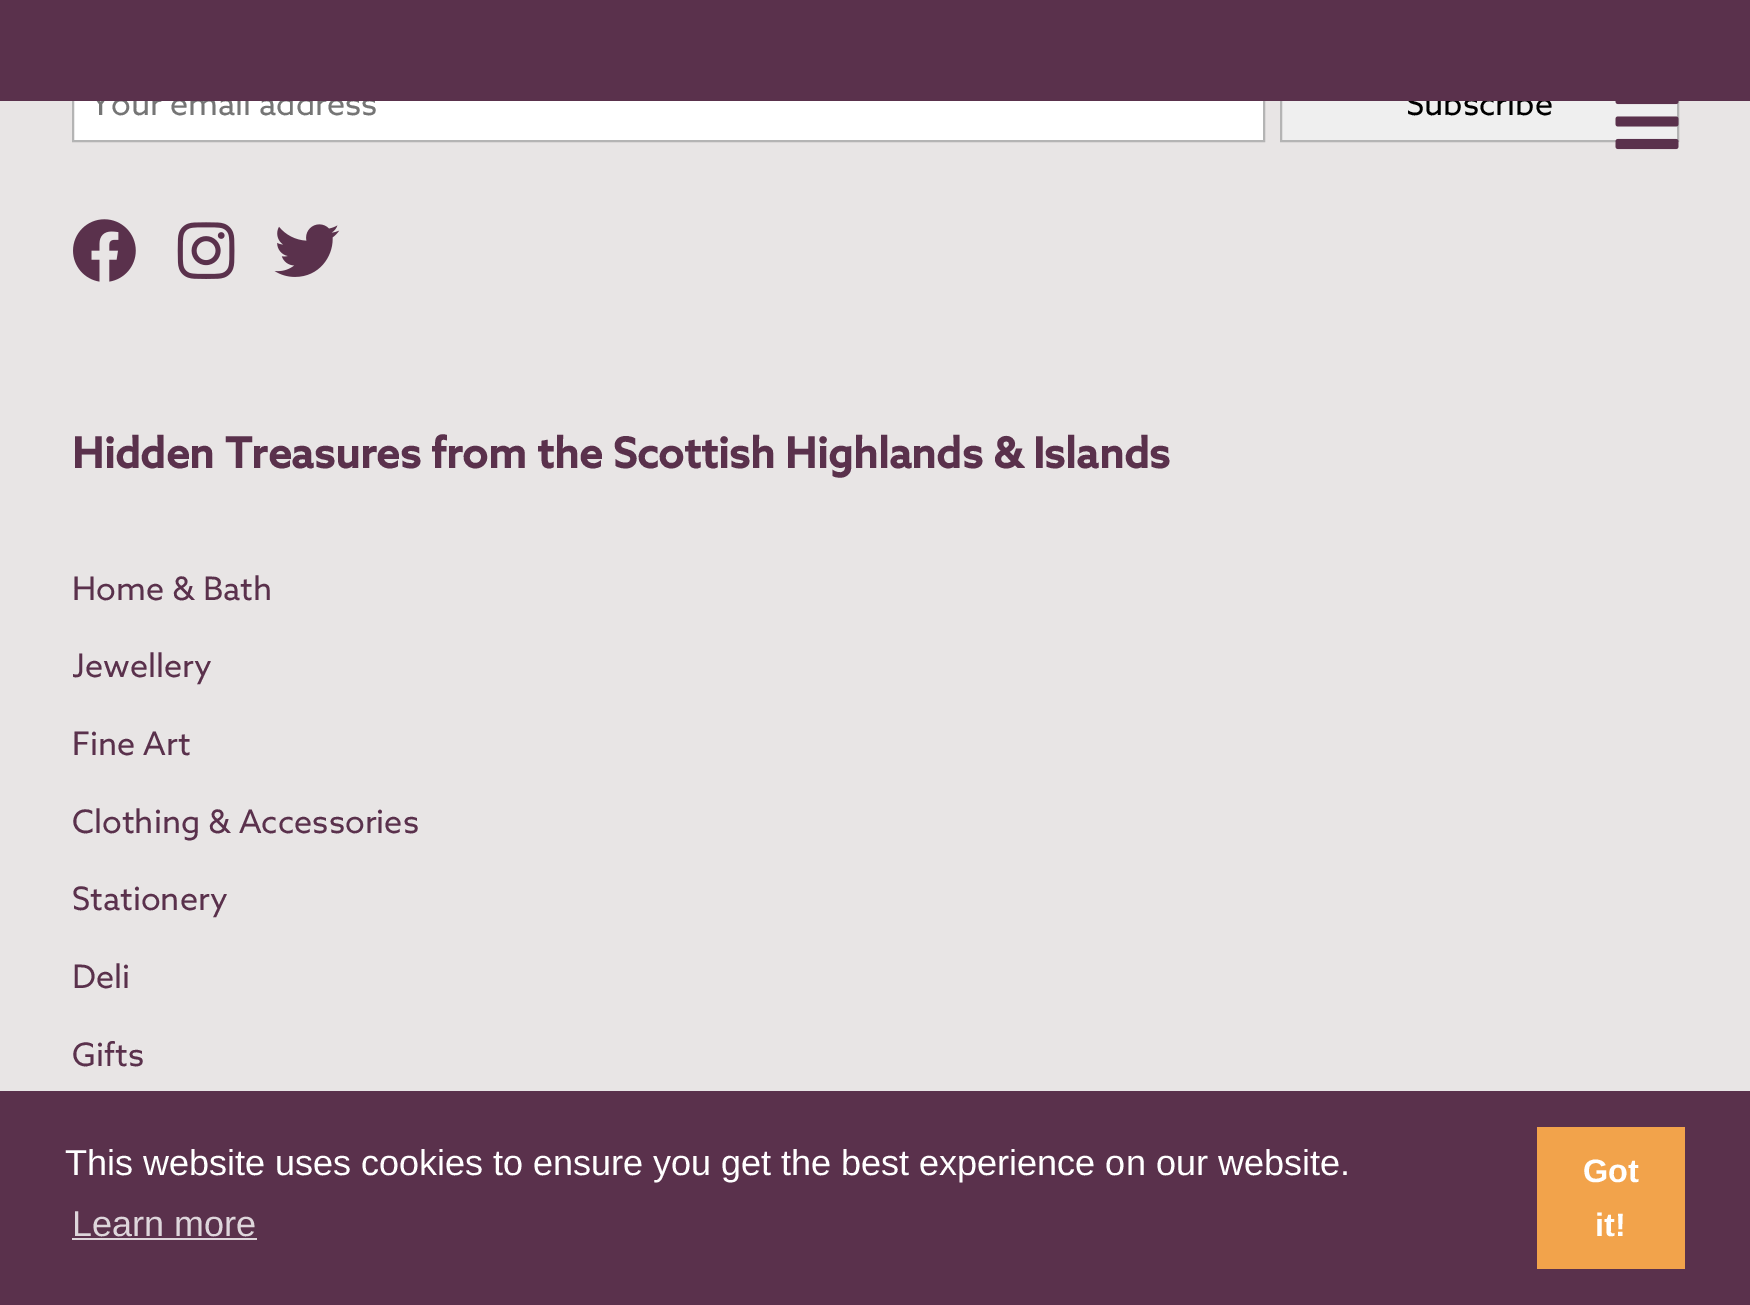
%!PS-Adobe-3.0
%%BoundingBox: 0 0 1750 1305
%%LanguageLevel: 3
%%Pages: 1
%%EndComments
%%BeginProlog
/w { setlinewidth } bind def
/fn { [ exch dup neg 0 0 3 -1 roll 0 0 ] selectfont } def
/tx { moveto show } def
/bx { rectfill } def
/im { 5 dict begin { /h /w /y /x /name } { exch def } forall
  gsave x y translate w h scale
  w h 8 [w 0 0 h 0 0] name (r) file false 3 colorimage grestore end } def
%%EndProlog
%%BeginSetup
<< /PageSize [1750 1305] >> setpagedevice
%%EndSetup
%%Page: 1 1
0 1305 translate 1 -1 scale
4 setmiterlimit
0.91 0.898 0.898 setrgbcolor
0 0 1750 1305 bx
1 setgray
74 101 1189 39 bx
0.706 setgray
2 w
73 69 1191 72 rectstroke
/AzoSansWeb-Regular 32.4 fn
0.459 setgray
(Your email address) 90 115 tx
0.937 setgray
1282 101 395 39 bx
0.706 setgray
1281 69 397 72 rectstroke
0 setgray
(Subscribe) 1406 115 tx
0.353 0.192 0.298 setrgbcolor
0 0 1750 101 bx
(image0.raw) 1615 101 64 49 im
(image1.raw) 73 219 63 63 im
(image2.raw) 177 222 58 57 im
(image3.raw) 274 224 66 53 im
/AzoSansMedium-Bold 42.1 fn
(Hidden Treasures from the Scottish Highlands & Islands) 72 468 tx
/AzoSansWeb-Regular 32.4 fn
(Home & Bath) 72 600 tx
(Jewellery) 72 677 tx
(Fine Art) 72 755 tx
(Clothing & Accessories) 72 833 tx
(Stationery) 72 910 tx
(Deli) 72 988 tx
(Gifts) 72 1066 tx
0 1091 1750 214 bx
/LiberationSans-Regular 36 fn
1 setgray
(This website uses cookies to ensure you get the best experience on our website.) 65 1175 tx
0.871 0.839 0.859 setrgbcolor
(Learn more) 72 1236 tx
72 1238 185 2 bx
0.949 0.639 0.294 setrgbcolor
1537 1127 148 142 bx
/LiberationSans-Bold 32.4 fn
1 setgray
(Got) 1583 1182 tx
(it!) 1595 1236 tx
showpage
%%EOF
